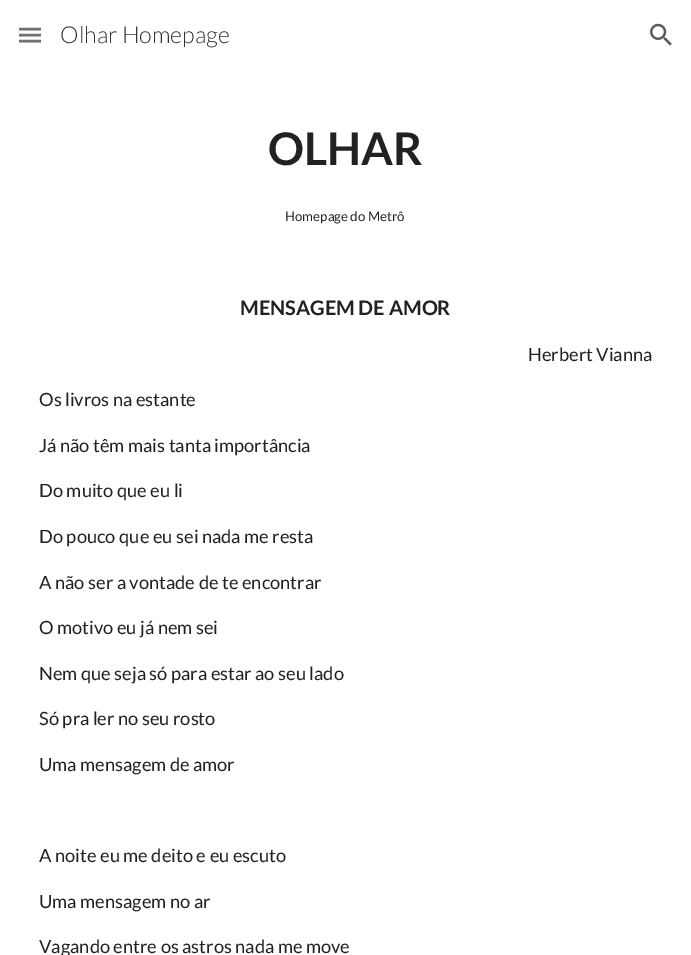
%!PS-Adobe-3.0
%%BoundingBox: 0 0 691 955
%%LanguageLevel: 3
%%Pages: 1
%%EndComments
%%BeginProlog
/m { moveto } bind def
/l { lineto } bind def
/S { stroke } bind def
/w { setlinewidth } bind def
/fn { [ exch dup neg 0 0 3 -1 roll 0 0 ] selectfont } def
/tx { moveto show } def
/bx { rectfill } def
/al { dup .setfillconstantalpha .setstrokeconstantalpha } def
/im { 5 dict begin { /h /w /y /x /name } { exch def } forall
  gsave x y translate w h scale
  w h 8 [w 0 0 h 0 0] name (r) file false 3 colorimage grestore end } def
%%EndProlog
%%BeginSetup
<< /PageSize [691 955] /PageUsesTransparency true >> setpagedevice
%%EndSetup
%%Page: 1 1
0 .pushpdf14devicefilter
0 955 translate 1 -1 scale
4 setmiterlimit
1 setgray
0 0 691 955 bx
0.361 setgray
2.5 w
19 29 m 41 29 l 19 35 m 41 35 l 19 41 m 41 41 l S
0.12 al
1 setgray
19 27 22 16 bx
/Lato-Light 23.25 fn
1 al
0.2 setgray
(Olhar Homepage) 60 43 tx
(image0.raw) 650 23 22 23 im
/Lato-Bold 45 fn
0.129 setgray
(OLHAR) 268 165 tx
/Lato-Regular 13.25 fn
(Homepage do Metrô) 285 221 tx
/Lato-Bold 20 fn
(MENSAGEM DE AMOR) 240 315 tx
/Lato-Regular 18.3 fn
(Herbert Vianna) 528 361 tx
(Os livros na estante) 39 406 tx
(Já não têm mais tanta importância) 39 452 tx
(Do muito que eu li) 39 497 tx
(Do pouco que eu sei nada me resta) 39 543 tx
(A não ser a vontade de te encontrar) 39 589 tx
(O motivo eu já nem sei) 39 634 tx
(Nem que seja só para estar ao seu lado) 39 680 tx
(Só pra ler no seu rosto) 39 725 tx
(Uma mensagem de amor) 39 771 tx
(A noite eu me deito e eu escuto) 39 862 tx
(Uma mensagem no ar) 39 908 tx
(Vagando entre os astros nada me move) 39 953 tx
.poppdf14devicefilter showpage
%%EOF
